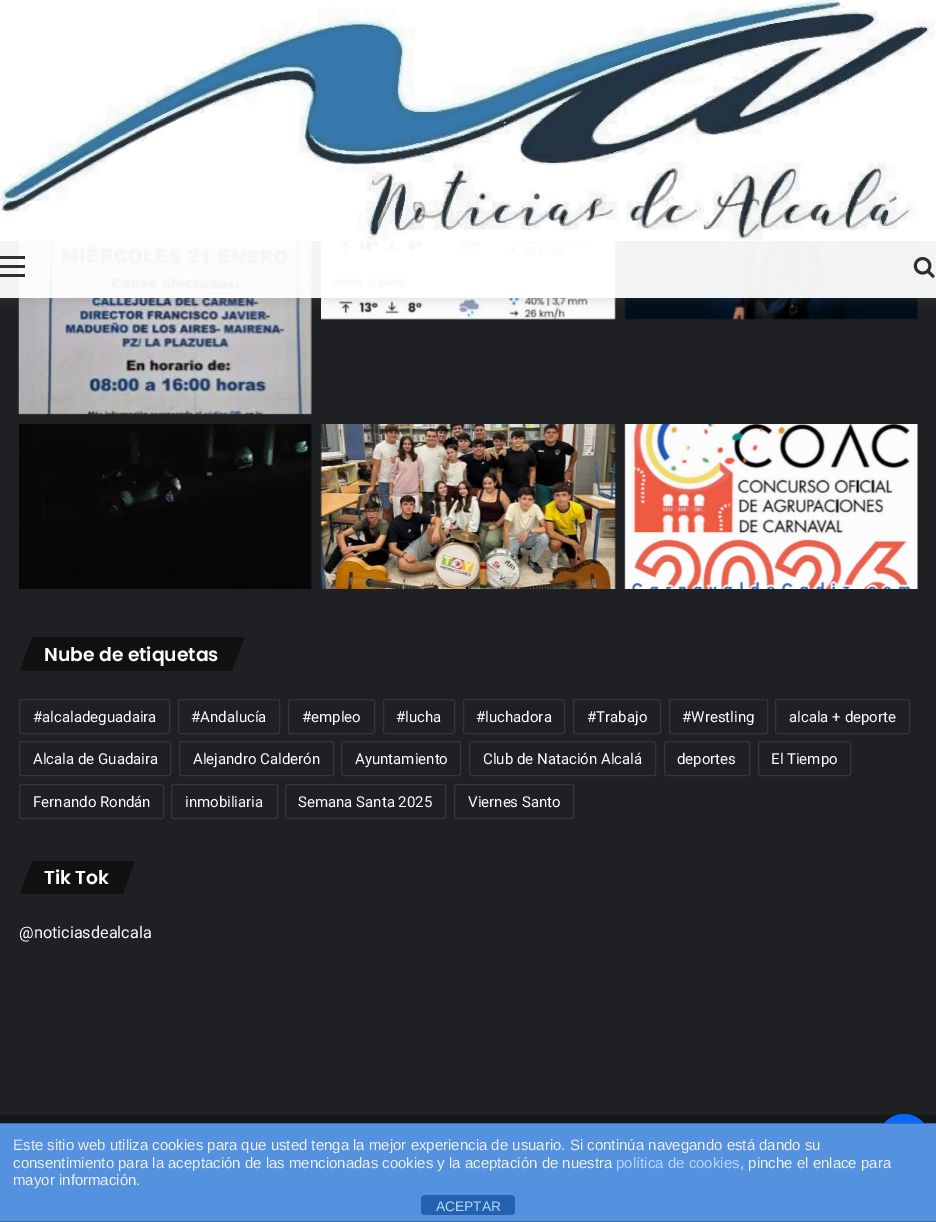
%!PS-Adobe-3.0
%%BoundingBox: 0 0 936 1222
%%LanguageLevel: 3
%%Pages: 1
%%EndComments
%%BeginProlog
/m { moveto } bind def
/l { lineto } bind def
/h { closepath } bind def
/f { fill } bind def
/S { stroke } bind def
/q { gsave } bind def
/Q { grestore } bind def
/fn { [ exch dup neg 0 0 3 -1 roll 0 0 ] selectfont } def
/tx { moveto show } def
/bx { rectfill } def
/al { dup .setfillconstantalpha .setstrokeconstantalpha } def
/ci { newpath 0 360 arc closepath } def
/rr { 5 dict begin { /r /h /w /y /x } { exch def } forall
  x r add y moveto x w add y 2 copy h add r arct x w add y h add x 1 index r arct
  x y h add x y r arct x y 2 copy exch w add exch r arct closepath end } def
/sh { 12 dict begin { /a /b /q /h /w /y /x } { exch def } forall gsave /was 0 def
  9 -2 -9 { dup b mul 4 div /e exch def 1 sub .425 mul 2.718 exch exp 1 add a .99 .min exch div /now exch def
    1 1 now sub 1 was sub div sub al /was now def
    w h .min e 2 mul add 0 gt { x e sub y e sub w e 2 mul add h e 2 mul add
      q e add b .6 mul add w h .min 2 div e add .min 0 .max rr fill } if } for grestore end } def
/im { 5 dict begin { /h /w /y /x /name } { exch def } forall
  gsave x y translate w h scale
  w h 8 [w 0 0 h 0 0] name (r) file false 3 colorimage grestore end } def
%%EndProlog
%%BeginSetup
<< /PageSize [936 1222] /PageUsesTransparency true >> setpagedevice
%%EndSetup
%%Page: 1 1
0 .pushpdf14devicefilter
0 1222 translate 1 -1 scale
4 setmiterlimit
0.122 0.125 0.141 setrgbcolor
0 0 936 1222 bx
(image2.raw) 18 241 294 174 im
(image3.raw) 321 241 295 79 im
(image4.raw) 624 241 294 79 im
q
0 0 m 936 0 l 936 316 l 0 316 l h 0 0 m 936 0 l 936 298 l 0 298 l h eoclip newpath
0.388 setgray
0 3 936 297 0 5 0.2 sh
Q
0.95 al
1 setgray
0 241 936 57 bx
1 al
(image0.raw) 0 0 936 241 im
0.173 0.184 0.204 setrgbcolor
0 265 25 3 bx
0 256 25 3 bx
0 274 25 3 bx
(image1.raw) 913 257 22 21 im
(image5.raw) 19 424 293 165 im
(image6.raw) 320 424 296 165 im
(image7.raw) 624 424 294 165 im
0.067 setgray
32 637 m 245 637 l 232 671 l 20 671 l h f
/Poppins-SemiBold 18.75 fn
0.992 setgray
(Nube de etiquetas) 44 661 tx
0.208 0.212 0.227 setrgbcolor
19.5 699.5 150 34 2 rr S
/Roboto-Regular 15 fn
0.992 setgray
(#alcaladeguadaira) 33 722 tx
0.208 0.212 0.227 setrgbcolor
178.5 699.5 101 34 2 rr S
0.992 setgray
(#Andalucía) 191 722 tx
0.208 0.212 0.227 setrgbcolor
288.5 699.5 86 34 2 rr S
0.992 setgray
(#empleo) 302 722 tx
0.208 0.212 0.227 setrgbcolor
383.5 699.5 71 34 2 rr S
0.992 setgray
(#lucha) 396 722 tx
0.208 0.212 0.227 setrgbcolor
463.5 699.5 101 34 2 rr S
0.992 setgray
(#luchadora) 476 722 tx
0.208 0.212 0.227 setrgbcolor
573.5 699.5 87 34 2 rr S
0.992 setgray
(#Trabajo) 587 722 tx
0.208 0.212 0.227 setrgbcolor
669.5 699.5 98 34 2 rr S
0.992 setgray
(#Wrestling) 682 722 tx
0.208 0.212 0.227 setrgbcolor
775.5 699.5 134 34 2 rr S
0.992 setgray
(alcala + deporte) 789 722 tx
0.208 0.212 0.227 setrgbcolor
19.5 741.5 151 34 2 rr S
0.992 setgray
(Alcala de Guadaira) 33 764 tx
0.208 0.212 0.227 setrgbcolor
179.5 741.5 154 34 2 rr S
0.992 setgray
(Alejandro Calderón) 193 764 tx
0.208 0.212 0.227 setrgbcolor
341.5 741.5 119 34 2 rr S
0.992 setgray
(Ayuntamiento) 355 764 tx
0.208 0.212 0.227 setrgbcolor
469.5 741.5 186 34 2 rr S
0.992 setgray
(Club de Natación Alcalá) 483 764 tx
0.208 0.212 0.227 setrgbcolor
664.5 741.5 85 34 2 rr S
0.992 setgray
(deportes) 677 764 tx
0.208 0.212 0.227 setrgbcolor
758.5 741.5 92 34 2 rr S
0.992 setgray
(El Tiempo) 771 764 tx
0.208 0.212 0.227 setrgbcolor
19.5 784.5 144 34 2 rr S
0.992 setgray
(Fernando Rondán) 33 807 tx
0.208 0.212 0.227 setrgbcolor
171.5 784.5 106 34 2 rr S
0.992 setgray
(inmobiliaria) 185 807 tx
0.208 0.212 0.227 setrgbcolor
285.5 784.5 160 34 2 rr S
0.992 setgray
(Semana Santa 2025) 298 807 tx
0.208 0.212 0.227 setrgbcolor
454.5 784.5 119 34 2 rr S
0.992 setgray
(Viernes Santo) 468 807 tx
0.067 setgray
32 861 m 135 861 l 123 894 l 20 894 l h f
/Poppins-SemiBold 18.75 fn
0.992 setgray
(Tik Tok) 44 884 tx
/Roboto-Regular 16.25 fn
(@noticiasdealcala) 19 938 tx
0.086 0.086 0.098 setrgbcolor
0 1115 936 8 bx
0.024 0.412 1 setrgbcolor
904 1140 26 ci f
0.329 0.573 0.878 setrgbcolor
0 1124 936 97 bx
0.247 0.427 0.655 setrgbcolor
0 1123 936 1 bx
0 1221 936 1 bx
/LiberationSans-Regular 15 fn
0.933 setgray
(Este sitio web utiliza cookies para que usted tenga la mejor experiencia de usuario. Si continúa navegando está dando su) 13 1150 tx
(consentimiento para la aceptación de las mencionadas cookies y la aceptación de nuestra) 13 1168 tx
0.718 0.843 1 setrgbcolor
(política de cookies) 616 1168 tx
0.933 setgray
(, pinche el enlace para) 740 1168 tx
(mayor información.) 13 1185 tx
0.141 0.384 0.69 setrgbcolor
421 1195 94 20 4 rr f
/LiberationSans-Regular 13.75 fn
0.718 0.843 1 setrgbcolor
(ACEPTAR) 436 1211 tx
.poppdf14devicefilter showpage
%%EOF
